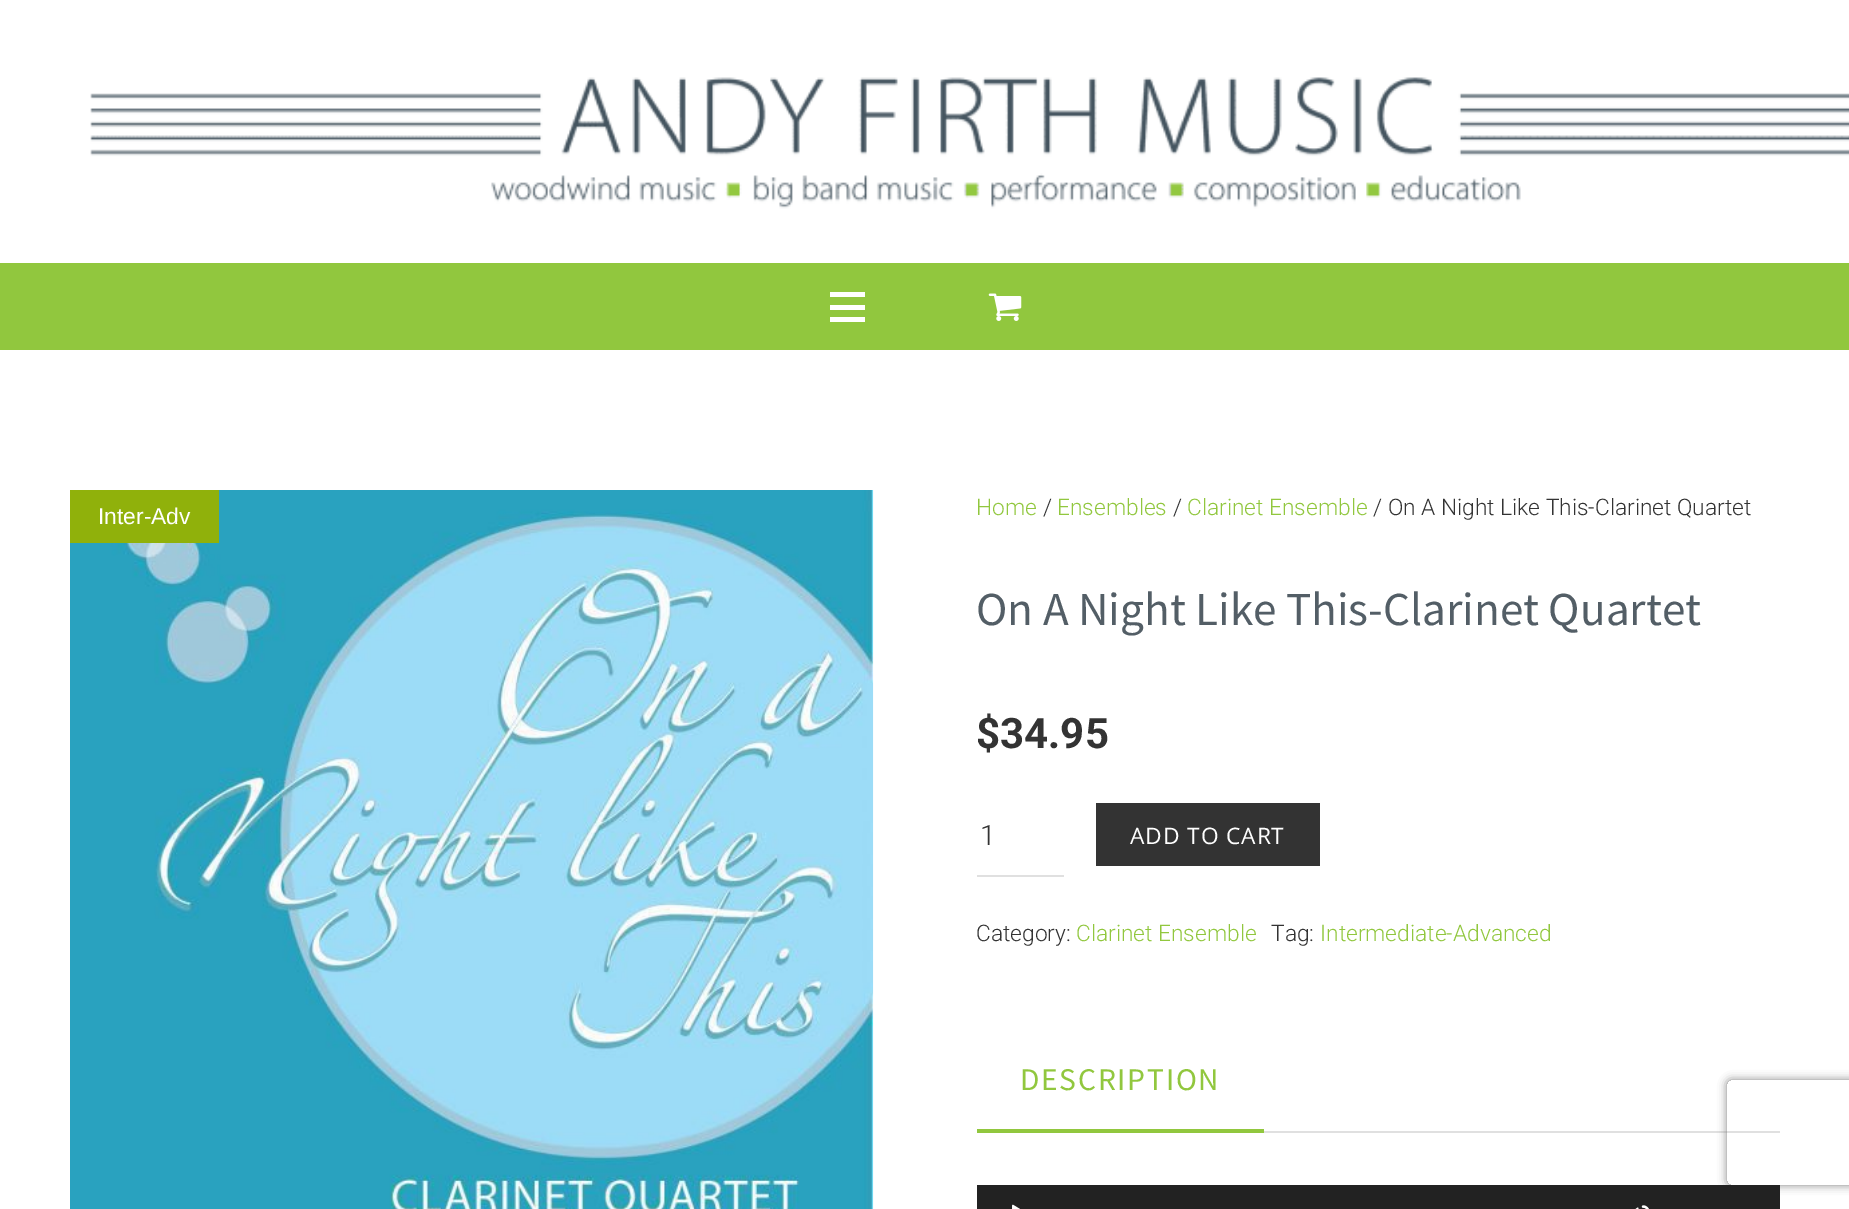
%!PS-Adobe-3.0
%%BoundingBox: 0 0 1849 1209
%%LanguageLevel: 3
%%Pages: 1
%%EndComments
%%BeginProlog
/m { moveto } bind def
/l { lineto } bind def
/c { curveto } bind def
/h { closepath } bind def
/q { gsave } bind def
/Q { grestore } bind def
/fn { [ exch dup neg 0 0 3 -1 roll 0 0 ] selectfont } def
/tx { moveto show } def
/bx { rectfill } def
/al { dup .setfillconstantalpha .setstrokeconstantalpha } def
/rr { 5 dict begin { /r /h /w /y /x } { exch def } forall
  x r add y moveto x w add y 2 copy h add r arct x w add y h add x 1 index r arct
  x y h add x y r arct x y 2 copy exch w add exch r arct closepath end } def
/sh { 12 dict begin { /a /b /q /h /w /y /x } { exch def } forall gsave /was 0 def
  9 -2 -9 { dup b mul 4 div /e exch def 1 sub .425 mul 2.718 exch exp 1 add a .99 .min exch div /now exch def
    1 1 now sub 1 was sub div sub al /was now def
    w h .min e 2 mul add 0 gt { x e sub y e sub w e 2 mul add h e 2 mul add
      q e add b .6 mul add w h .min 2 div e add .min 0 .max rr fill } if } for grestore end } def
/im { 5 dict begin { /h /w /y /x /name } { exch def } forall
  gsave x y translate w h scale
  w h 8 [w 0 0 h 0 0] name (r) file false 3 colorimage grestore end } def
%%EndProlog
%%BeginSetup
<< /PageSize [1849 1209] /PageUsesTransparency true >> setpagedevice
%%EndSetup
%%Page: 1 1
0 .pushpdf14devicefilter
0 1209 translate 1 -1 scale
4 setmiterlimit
1 setgray
0 0 1849 1209 bx
(image0.raw) 90 77 1759 132 im
0.569 0.78 0.243 setrgbcolor
0 263 1849 87 bx
1 setgray
830 305 35 5 bx
830 292 35 5 bx
830 317 35 5 bx
(image1.raw) 988 293 34 28 im
(image2.raw) 70 490 804 719 im
0.565 0.694 0.043 setrgbcolor
70 490 149 53 bx
/LiberationSans-Regular 22.75 fn
1 setgray
(Inter-Adv) 98 524 tx
/Roboto-Light 22.75 fn
0.569 0.78 0.243 setrgbcolor
(Home) 976 515 tx
0.2 setgray
(/) 1043 515 tx
0.569 0.78 0.243 setrgbcolor
(Ensembles) 1057 515 tx
0.2 setgray
(/) 1173 515 tx
0.569 0.78 0.243 setrgbcolor
(Clarinet Ensemble) 1187 515 tx
0.2 setgray
(/ On A Night Like This-Clarinet Quartet) 1373 515 tx
/SourceSansPro-Regular 47.25 fn
0.325 0.369 0.4 setrgbcolor
(On A Night Like This-Clarinet Quartet) 976 625 tx
/Roboto-Bold 42 fn
0.2 setgray
($34.95) 976 748 tx
0.878 setgray
977 875 87 2 bx
/Roboto-Light 28 fn
0.2 setgray
(1) 980 845 tx
1096 803 224 63 bx
/OpenSans-Regular 22.75 fn
1 setgray
1130 844 m 0.9 0 (ADD TO CART) ashow
/Roboto-Light 22.75 fn
0.2 setgray
(Category:) 976 941 tx
0.569 0.78 0.243 setrgbcolor
(Clarinet Ensemble) 1076 941 tx
0.2 setgray
(Tag:) 1271 941 tx
0.569 0.78 0.243 setrgbcolor
(Intermediate-Advanced) 1320 941 tx
0.878 setgray
1264 1131 516 2 bx
0.569 0.78 0.243 setrgbcolor
977 1129 287 4 bx
/SourceSansPro-Regular 31.5 fn
1020 1090 m 1.75 0 (DESCRIPTION) ashow
q
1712 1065 m 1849 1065 l 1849 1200 l 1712 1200 l h 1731 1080 m 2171 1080 l 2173 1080 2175 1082 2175 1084 c 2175 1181 l 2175 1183 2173 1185 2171 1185 c 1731 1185 l 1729 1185 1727 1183 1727 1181 c 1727 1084 l 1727 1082 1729 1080 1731 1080 c h eoclip newpath
0.502 setgray
1727 1080 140 105 4 4.5 1 sh
Q
0.133 setgray
977 1185 803 24 bx
(image3.raw) 1012 1204 8 5 im
(image4.raw) 1635 1205 14 4 im
.poppdf14devicefilter showpage
%%EOF
